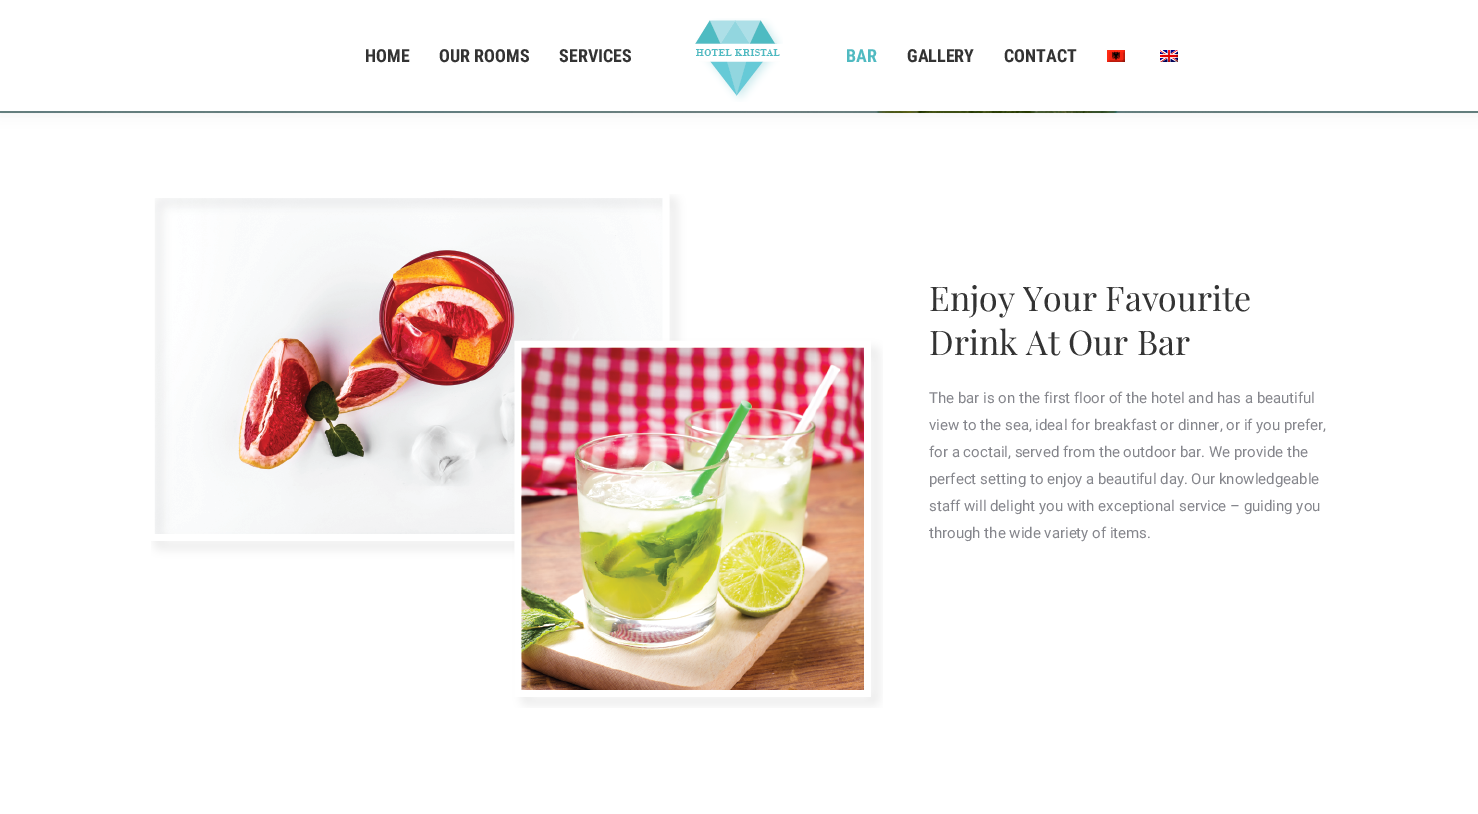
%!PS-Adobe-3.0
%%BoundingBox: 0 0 1478 814
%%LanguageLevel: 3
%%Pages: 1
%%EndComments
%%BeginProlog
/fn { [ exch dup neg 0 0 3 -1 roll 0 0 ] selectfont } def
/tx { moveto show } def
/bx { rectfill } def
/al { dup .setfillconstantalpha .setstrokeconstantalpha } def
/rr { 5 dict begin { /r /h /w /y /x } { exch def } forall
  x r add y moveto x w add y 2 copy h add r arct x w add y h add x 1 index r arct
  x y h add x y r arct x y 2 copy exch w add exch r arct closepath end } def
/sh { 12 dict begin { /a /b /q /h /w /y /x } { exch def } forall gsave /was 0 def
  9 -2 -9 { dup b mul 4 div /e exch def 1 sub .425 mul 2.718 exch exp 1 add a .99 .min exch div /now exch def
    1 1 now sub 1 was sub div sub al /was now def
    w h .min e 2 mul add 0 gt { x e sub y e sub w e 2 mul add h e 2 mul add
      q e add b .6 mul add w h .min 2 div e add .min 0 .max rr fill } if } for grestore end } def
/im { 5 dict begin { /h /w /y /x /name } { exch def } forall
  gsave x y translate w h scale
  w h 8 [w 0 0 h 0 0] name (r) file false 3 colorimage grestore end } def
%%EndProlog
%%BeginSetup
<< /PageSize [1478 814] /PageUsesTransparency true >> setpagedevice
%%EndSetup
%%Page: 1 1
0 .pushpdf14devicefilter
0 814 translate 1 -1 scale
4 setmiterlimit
1 setgray
0 0 1478 814 bx
(image3.raw) 0 111 1478 2 im
0 setgray
-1 -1 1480 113 0 7.5 0.07 sh
1 setgray
0 0 1478 111 bx
/RobotoCondensed-Bold 18 fn
0.2 setgray
(HOME) 365 62 tx
(OUR ROOMS) 439 62 tx
(SERVICES) 559 62 tx
(image0.raw) 695 18 88 84 im
0.314 0.729 0.757 setrgbcolor
(BAR) 846 62 tx
0.2 setgray
(GALLERY) 907 62 tx
(CONTACT) 1004 62 tx
(image1.raw) 1107 50 18 12 im
(image2.raw) 1160 50 18 12 im
(image4.raw) 151 194 732 514 im
/PlayfairDisplay-Regular 34 fn
(Enjoy Your Favourite) 929 311 tx
(Drink At Our Bar) 929 355 tx
/Roboto-Regular 15 fn
0.522 0.525 0.549 setrgbcolor
(The bar is on the first floor of the hotel and has a beautiful) 929 403 tx
(view to the sea, ideal for breakfast or dinner, or if you prefer,) 929 430 tx
(for a coctail, served from the outdoor bar. We provide the) 929 457 tx
(perfect setting to enjoy a beautiful day. Our knowledgeable) 929 484 tx
(staff will delight you with exceptional service – guiding you) 929 511 tx
(through the wide variety of items.) 929 538 tx
.poppdf14devicefilter showpage
%%EOF
